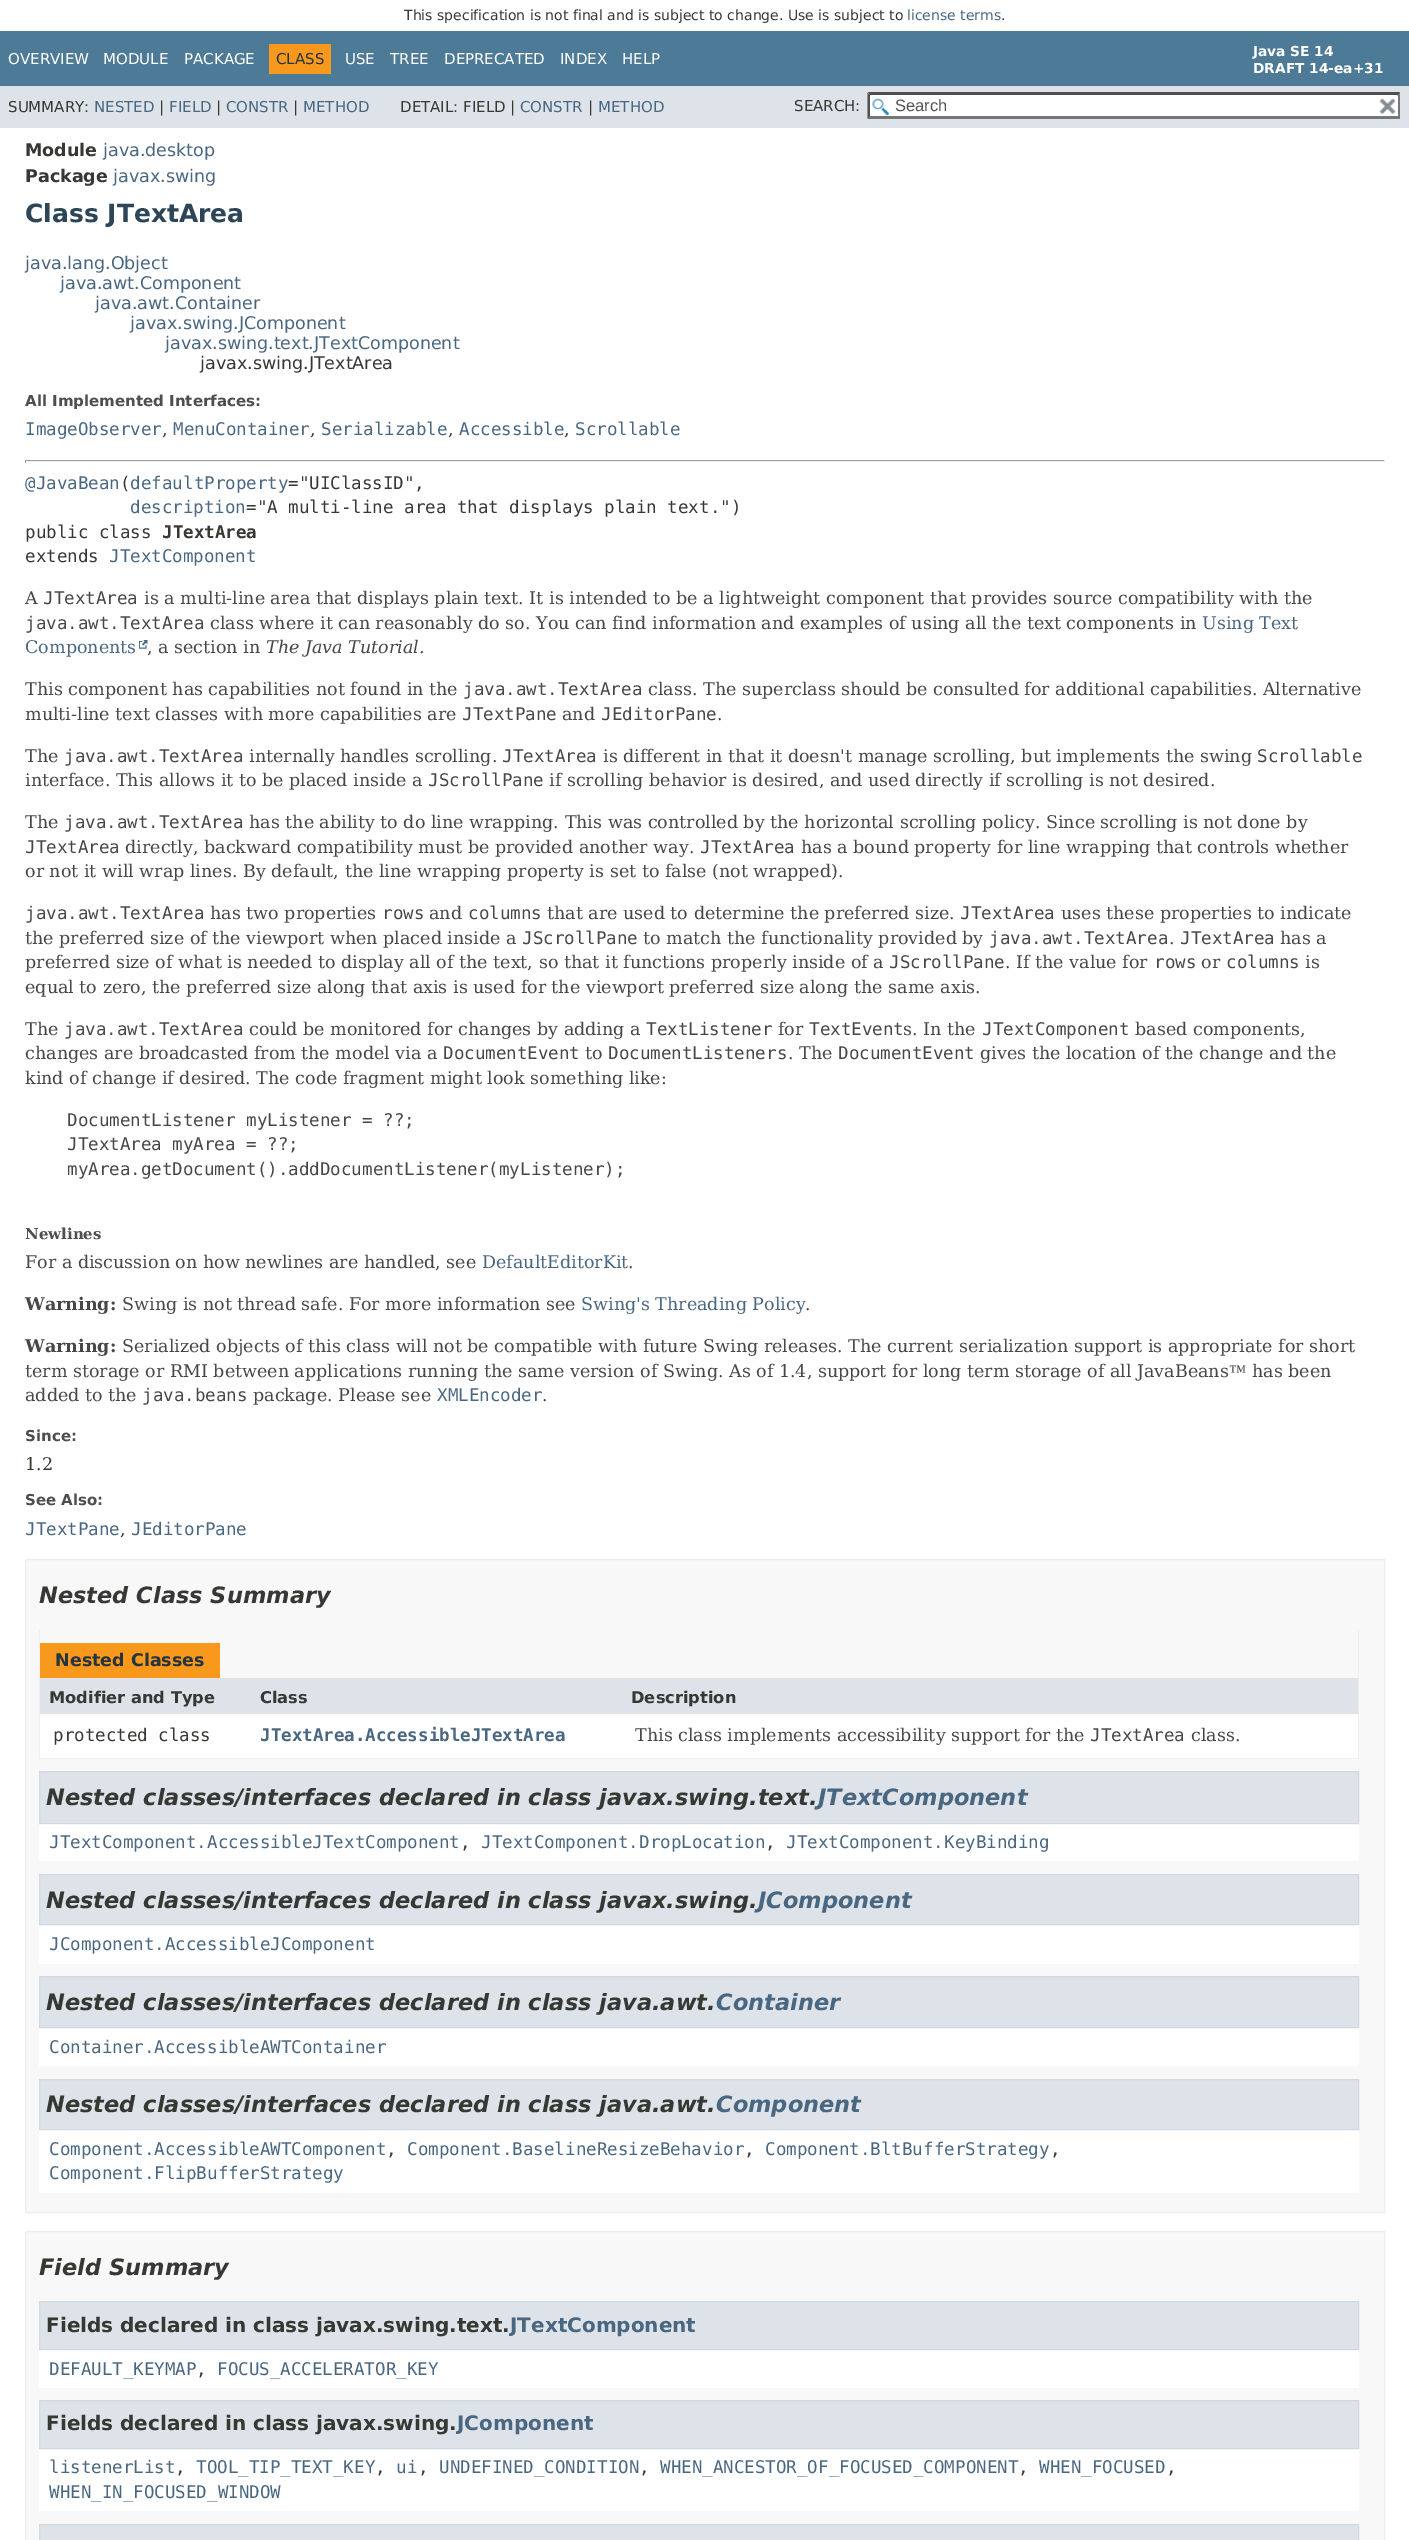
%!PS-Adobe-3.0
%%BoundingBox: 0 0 1409 2540
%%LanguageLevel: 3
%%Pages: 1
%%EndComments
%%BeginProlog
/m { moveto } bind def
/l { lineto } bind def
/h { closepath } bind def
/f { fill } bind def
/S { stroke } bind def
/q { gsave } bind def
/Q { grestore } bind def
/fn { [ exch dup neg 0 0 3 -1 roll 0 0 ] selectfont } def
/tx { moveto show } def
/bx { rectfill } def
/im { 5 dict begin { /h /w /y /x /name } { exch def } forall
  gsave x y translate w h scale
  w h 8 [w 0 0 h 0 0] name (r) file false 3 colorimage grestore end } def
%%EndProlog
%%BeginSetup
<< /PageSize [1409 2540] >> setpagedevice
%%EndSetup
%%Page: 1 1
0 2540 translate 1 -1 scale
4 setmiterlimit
1 setgray
0 0 1409 2540 bx
/DejaVuSans-Regular 14 fn
0.208 0.22 0.2 setrgbcolor
(This specification is not final and is subject to change. Use is subject to) 404 20 tx
0.29 0.404 0.51 setrgbcolor
(license terms) 907 20 tx
0.208 0.22 0.2 setrgbcolor
(.) 1001 20 tx
0.302 0.478 0.592 setrgbcolor
0 31 1409 55 bx
/DejaVuSans-Regular 15 fn
1 setgray
(OVERVIEW) 8 64 tx
(MODULE) 103 64 tx
(PACKAGE) 184 64 tx
0.973 0.596 0.114 setrgbcolor
269 44 62 30 bx
0.145 0.204 0.255 setrgbcolor
(CLASS) 276 64 tx
1 setgray
(USE) 345 64 tx
(TREE) 390 64 tx
(DEPRECATED) 444 64 tx
(INDEX) 560 64 tx
(HELP) 622 64 tx
/DejaVuSans-Bold 13.75 fn
(Java SE 14) 1253 56 tx
(DRAFT 14-ea+31) 1253 73 tx
0.871 0.89 0.914 setrgbcolor
0 86 1409 42 bx
/DejaVuSans-Regular 15 fn
0.208 0.22 0.2 setrgbcolor
(SUMMARY:) 8 112 tx
0.29 0.404 0.51 setrgbcolor
(NESTED) 94 112 tx
0.208 0.22 0.2 setrgbcolor
(|) 159 112 tx
0.29 0.404 0.51 setrgbcolor
(FIELD) 169 112 tx
0.208 0.22 0.2 setrgbcolor
(|) 216 112 tx
0.29 0.404 0.51 setrgbcolor
(CONSTR) 226 112 tx
0.208 0.22 0.2 setrgbcolor
(|) 293 112 tx
0.29 0.404 0.51 setrgbcolor
(METHOD) 303 112 tx
0.208 0.22 0.2 setrgbcolor
(DETAIL: FIELD |) 400 112 tx
0.29 0.404 0.51 setrgbcolor
(CONSTR) 520 112 tx
0.208 0.22 0.2 setrgbcolor
(|) 588 112 tx
0.29 0.404 0.51 setrgbcolor
(METHOD) 598 112 tx
0.208 0.22 0.2 setrgbcolor
(SEARCH:) 794 111 tx
1 setgray
868 93 532 26 bx
(image0.raw) 872 98 17 17 im
0.31 setgray
868 92 m 1400 92 l 1398 95 l 870 95 l h f
0.463 setgray
1400 92.5 m 1400 119 l 1397.5 116 l 1397.5 95 l h f
1400 119 m 868 119 l 870 116 l 1398 116 l h f
0.31 setgray
867.5 119 m 867.5 92.5 l 870 95 l 870 116 l h f
/LiberationSans-Regular 16.5 fn
0.329 setgray
(Search) 895 111 tx
1 setgray
1397 96 1 20 bx
(image1.raw) 1379 98 17 16 im
/DejaVuSans-Bold 17.5 fn
0.208 0.22 0.2 setrgbcolor
(Module) 25 156 tx
/DejaVuSans-Regular 17.5 fn
0.29 0.404 0.51 setrgbcolor
(java.desktop) 103 156 tx
/DejaVuSans-Bold 17.5 fn
0.208 0.22 0.2 setrgbcolor
(Package) 25 182 tx
/DejaVuSans-Regular 17.5 fn
0.29 0.404 0.51 setrgbcolor
(javax.swing) 113 182 tx
/DejaVuSans-Bold 25 fn
0.173 0.271 0.341 setrgbcolor
(Class JTextArea) 25 222 tx
/DejaVuSans-Regular 17.5 fn
0.29 0.404 0.51 setrgbcolor
(java.lang.Object) 25 269 tx
(java.awt.Component) 60 289 tx
(java.awt.Container) 95 309 tx
(javax.swing.JComponent) 130 329 tx
(javax.swing.text.JTextComponent) 165 349 tx
0.208 0.22 0.2 setrgbcolor
(javax.swing.JTextArea) 200 369 tx
/DejaVuSans-Bold 15 fn
0.306 setgray
(All Implemented Interfaces:) 25 406 tx
/DejaVuSansMono-Regular 17.5 fn
0.29 0.404 0.51 setrgbcolor
(ImageObserver) 25 435 tx
/DejaVuSerif-Regular 17.5 fn
0.208 0.22 0.2 setrgbcolor
(,) 162 435 tx
/DejaVuSansMono-Regular 17.5 fn
0.29 0.404 0.51 setrgbcolor
(MenuContainer) 173 435 tx
/DejaVuSerif-Regular 17.5 fn
0.208 0.22 0.2 setrgbcolor
(,) 310 435 tx
/DejaVuSansMono-Regular 17.5 fn
0.29 0.404 0.51 setrgbcolor
(Serializable) 321 435 tx
/DejaVuSerif-Regular 17.5 fn
0.208 0.22 0.2 setrgbcolor
(,) 448 435 tx
/DejaVuSansMono-Regular 17.5 fn
0.29 0.404 0.51 setrgbcolor
(Accessible) 459 435 tx
/DejaVuSerif-Regular 17.5 fn
0.208 0.22 0.2 setrgbcolor
(,) 564 435 tx
/DejaVuSansMono-Regular 17.5 fn
0.29 0.404 0.51 setrgbcolor
(Scrollable) 575 435 tx
0.624 setgray
25 460 1360 1 bx
0.933 setgray
1384 460 1 3 bx
25 461 1360 1 bx
0.624 setgray
25 460 1 3 bx
0.29 0.404 0.51 setrgbcolor
(@JavaBean defaultProperty) 25 489 tx
0.208 0.22 0.2 setrgbcolor
(\() 120 489 tx
(="UIClassID",) 288 489 tx
0.29 0.404 0.51 setrgbcolor
(description) 130 513 tx
0.208 0.22 0.2 setrgbcolor
(="A multi-line area that displays plain text."\)) 246 513 tx
(public class) 25 538 tx
/DejaVuSansMono-Bold 17.5 fn
(JTextArea) 162 538 tx
/DejaVuSansMono-Regular 17.5 fn
(extends) 25 562 tx
0.29 0.404 0.51 setrgbcolor
(JTextComponent) 109 562 tx
/DejaVuSerif-Regular 17.5 fn
0.278 setgray
(A) 25 604 tx
/DejaVuSansMono-Regular 17.5 fn
(JTextArea) 43 604 tx
/DejaVuSerif-Regular 17.5 fn
(is a multi-line area that displays plain text. It is intended to be a lightweight component that provides source compatibility with the) 144 604 tx
/DejaVuSansMono-Regular 17.5 fn
(java.awt.TextArea) 25 629 tx
/DejaVuSerif-Regular 17.5 fn
(class where it can reasonably do so. You can find information and examples of using all the text components in) 210 629 tx
0.29 0.404 0.51 setrgbcolor
(Using Text) 1202 629 tx
(Components) 25 653 tx
(image2.raw) 139 640 9 9 im
0.278 setgray
(, a section in) 147 653 tx
/DejaVuSerif-Italic 17.5 fn
(The Java Tutorial.) 266 653 tx
/DejaVuSerif-Regular 17.5 fn
(This component has capabilities not found in the) 25 695 tx
/DejaVuSansMono-Regular 17.5 fn
(java.awt.TextArea) 463 695 tx
/DejaVuSerif-Regular 17.5 fn
(class. The superclass should be consulted for additional capabilities. Alternative) 648 695 tx
(multi-line text classes with more capabilities are) 25 720 tx
/DejaVuSansMono-Regular 17.5 fn
(JTextPane) 462 720 tx
/DejaVuSerif-Regular 17.5 fn
(and) 562 720 tx
/DejaVuSansMono-Regular 17.5 fn
(JEditorPane) 601 720 tx
/DejaVuSerif-Regular 17.5 fn
(.) 717 720 tx
(The) 25 762 tx
/DejaVuSansMono-Regular 17.5 fn
(java.awt.TextArea) 64 762 tx
/DejaVuSerif-Regular 17.5 fn
(internally handles scrolling.) 249 762 tx
/DejaVuSansMono-Regular 17.5 fn
(JTextArea) 502 762 tx
/DejaVuSerif-Regular 17.5 fn
(is different in that it doesn't manage scrolling, but implements the swing) 603 762 tx
/DejaVuSansMono-Regular 17.5 fn
(Scrollable) 1257 762 tx
/DejaVuSerif-Regular 17.5 fn
(interface. This allows it to be placed inside a) 25 786 tx
/DejaVuSansMono-Regular 17.5 fn
(JScrollPane) 428 786 tx
/DejaVuSerif-Regular 17.5 fn
(if scrolling behavior is desired, and used directly if scrolling is not desired.) 549 786 tx
(The) 25 828 tx
/DejaVuSansMono-Regular 17.5 fn
(java.awt.TextArea) 64 828 tx
/DejaVuSerif-Regular 17.5 fn
(has the ability to do line wrapping. This was controlled by the horizontal scrolling policy. Since scrolling is not done by) 249 828 tx
/DejaVuSansMono-Regular 17.5 fn
(JTextArea) 25 853 tx
/DejaVuSerif-Regular 17.5 fn
(directly, backward compatibility must be provided another way.) 125 853 tx
/DejaVuSansMono-Regular 17.5 fn
(JTextArea) 700 853 tx
/DejaVuSerif-Regular 17.5 fn
(has a bound property for line wrapping that controls whether) 801 853 tx
(or not it will wrap lines. By default, the line wrapping property is set to false \(not wrapped\).) 25 877 tx
/DejaVuSansMono-Regular 17.5 fn
(java.awt.TextArea) 25 919 tx
/DejaVuSerif-Regular 17.5 fn
(has two properties) 210 919 tx
/DejaVuSansMono-Regular 17.5 fn
(rows) 382 919 tx
/DejaVuSerif-Regular 17.5 fn
(and) 429 919 tx
/DejaVuSansMono-Regular 17.5 fn
(columns) 468 919 tx
/DejaVuSerif-Regular 17.5 fn
(that are used to determine the preferred size.) 547 919 tx
/DejaVuSansMono-Regular 17.5 fn
(JTextArea) 960 919 tx
/DejaVuSerif-Regular 17.5 fn
(uses these properties to indicate) 1061 919 tx
(the preferred size of the viewport when placed inside a) 25 944 tx
/DejaVuSansMono-Regular 17.5 fn
(JScrollPane) 522 944 tx
/DejaVuSerif-Regular 17.5 fn
(to match the functionality provided by) 643 944 tx
/DejaVuSansMono-Regular 17.5 fn
(java.awt.TextArea) 989 944 tx
/DejaVuSerif-Regular 17.5 fn
(.) 1169 944 tx
/DejaVuSansMono-Regular 17.5 fn
(JTextArea) 1180 944 tx
/DejaVuSerif-Regular 17.5 fn
(has a) 1280 944 tx
(preferred size of what is needed to display all of the text, so that it functions properly inside of a) 25 968 tx
/DejaVuSansMono-Regular 17.5 fn
(JScrollPane) 889 968 tx
/DejaVuSerif-Regular 17.5 fn
(. If the value for) 1005 968 tx
/DejaVuSansMono-Regular 17.5 fn
(rows) 1154 968 tx
/DejaVuSerif-Regular 17.5 fn
(or) 1201 968 tx
/DejaVuSansMono-Regular 17.5 fn
(columns) 1226 968 tx
/DejaVuSerif-Regular 17.5 fn
(is) 1305 968 tx
(equal to zero, the preferred size along that axis is used for the viewport preferred size along the same axis.) 25 993 tx
(The) 25 1035 tx
/DejaVuSansMono-Regular 17.5 fn
(java.awt.TextArea) 64 1035 tx
/DejaVuSerif-Regular 17.5 fn
(could be monitored for changes by adding a) 249 1035 tx
/DejaVuSansMono-Regular 17.5 fn
(TextListener) 646 1035 tx
/DejaVuSerif-Regular 17.5 fn
(for) 778 1035 tx
/DejaVuSansMono-Regular 17.5 fn
(TextEvent) 809 1035 tx
/DejaVuSerif-Regular 17.5 fn
(s. In the) 903 1035 tx
/DejaVuSansMono-Regular 17.5 fn
(JTextComponent) 982 1035 tx
/DejaVuSerif-Regular 17.5 fn
(based components,) 1135 1035 tx
(changes are broadcasted from the model via a) 25 1059 tx
/DejaVuSansMono-Regular 17.5 fn
(DocumentEvent) 443 1059 tx
/DejaVuSerif-Regular 17.5 fn
(to) 585 1059 tx
/DejaVuSansMono-Regular 17.5 fn
(DocumentListeners) 608 1059 tx
/DejaVuSerif-Regular 17.5 fn
(. The) 788 1059 tx
/DejaVuSansMono-Regular 17.5 fn
(DocumentEvent) 838 1059 tx
/DejaVuSerif-Regular 17.5 fn
(gives the location of the change and the) 980 1059 tx
(kind of change if desired. The code fragment might look something like:) 25 1084 tx
/DejaVuSansMono-Regular 17.5 fn
(DocumentListener myListener = ??;) 67 1126 tx
(JTextArea myArea = ??;) 67 1150 tx
(myArea.getDocument\(\).addDocumentListener\(myListener\);) 67 1175 tx
/DejaVuSerif-Bold 15 fn
0.306 setgray
(Newlines) 25 1239 tx
/DejaVuSerif-Regular 17.5 fn
0.278 setgray
(For a discussion on how newlines are handled, see) 25 1268 tx
0.29 0.404 0.51 setrgbcolor
(DefaultEditorKit) 482 1268 tx
0.278 setgray
(.) 628 1268 tx
/DejaVuSerif-Bold 17.5 fn
(Warning:) 25 1310 tx
/DejaVuSerif-Regular 17.5 fn
(Swing is not thread safe. For more information see) 122 1310 tx
0.29 0.404 0.51 setrgbcolor
(Swing's Threading Policy) 581 1310 tx
0.278 setgray
(.) 805 1310 tx
/DejaVuSerif-Bold 17.5 fn
(Warning:) 25 1352 tx
/DejaVuSerif-Regular 17.5 fn
(Serialized objects of this class will not be compatible with future Swing releases. The current serialization support is appropriate for short) 122 1352 tx
(term storage or RMI between applications running the same version of Swing. As of 1.4, support for long term storage of all JavaBeans) 25 1377 tx
/LiberationSerif-Regular 17.5 fn
(™) 1229 1377 tx
/DejaVuSerif-Regular 17.5 fn
(has been) 1252 1377 tx
(added to the) 25 1401 tx
/DejaVuSansMono-Regular 17.5 fn
(java.beans) 142 1401 tx
/DejaVuSerif-Regular 17.5 fn
(package. Please see) 253 1401 tx
/DejaVuSansMono-Regular 17.5 fn
0.29 0.404 0.51 setrgbcolor
(XMLEncoder) 437 1401 tx
/DejaVuSerif-Regular 17.5 fn
0.278 setgray
(.) 542 1401 tx
/DejaVuSans-Bold 15 fn
0.306 setgray
(Since:) 25 1441 tx
/DejaVuSerif-Regular 17.5 fn
0.208 0.22 0.2 setrgbcolor
(1.2) 25 1470 tx
/DejaVuSans-Bold 15 fn
0.306 setgray
(See Also:) 25 1505 tx
/DejaVuSansMono-Regular 17.5 fn
0.29 0.404 0.51 setrgbcolor
(JTextPane) 25 1535 tx
/DejaVuSerif-Regular 17.5 fn
0.208 0.22 0.2 setrgbcolor
(,) 120 1535 tx
/DejaVuSansMono-Regular 17.5 fn
0.29 0.404 0.51 setrgbcolor
(JEditorPane) 131 1535 tx
0.973 setgray
25.5 1559.5 m 1384.5 1559.5 l 1384.5 2212.5 l 25.5 2212.5 l h q f Q
0.929 setgray
S
/DejaVuSans-BoldItalic 22.5 fn
0.208 0.22 0.2 setrgbcolor
(Nested Class Summary) 39 1603 tx
0.933 setgray
1358 1630 1 129 bx
39 1758 1320 1 bx
39 1630 1 129 bx
0.973 0.596 0.114 setrgbcolor
40 1643 180 35 bx
/DejaVuSans-Bold 17.5 fn
0.145 0.204 0.255 setrgbcolor
(Nested Classes) 55 1666 tx
0.871 0.89 0.914 setrgbcolor
40 1678 1318 36 bx
/DejaVuSans-Bold 16.25 fn
0.208 0.22 0.2 setrgbcolor
(Modifier and Type) 49 1703 tx
(Class) 260 1703 tx
(Description) 631 1703 tx
1 setgray
40 1714 1318 44 bx
/DejaVuSansMono-Regular 17.5 fn
0.208 0.22 0.2 setrgbcolor
(protected class) 53 1741 tx
/DejaVuSansMono-Bold 17.5 fn
0.29 0.404 0.51 setrgbcolor
(JTextArea.AccessibleJTextArea) 260 1741 tx
/DejaVuSerif-Regular 17.5 fn
0.278 setgray
(This class implements accessibility support for the) 635 1741 tx
/DejaVuSansMono-Regular 17.5 fn
(JTextArea) 1090 1741 tx
/DejaVuSerif-Regular 17.5 fn
(class.) 1191 1741 tx
1 setgray
39 1824 1320 37 bx
0.871 0.89 0.914 setrgbcolor
39.5 1771.5 m 1358.5 1771.5 l 1358.5 1823.5 l 39.5 1823.5 l h q f Q
0.816 0.851 0.878 setrgbcolor
S
/DejaVuSans-BoldItalic 22.5 fn
0.208 0.22 0.2 setrgbcolor
(Nested classes/interfaces declared in class javax.swing.text.) 46 1805 tx
0.29 0.404 0.51 setrgbcolor
(JTextComponent) 818 1805 tx
/DejaVuSansMono-Regular 17.5 fn
(JTextComponent.AccessibleJTextComponent) 49 1848 tx
0.208 0.22 0.2 setrgbcolor
(,) 460 1848 tx
0.29 0.404 0.51 setrgbcolor
(JTextComponent.DropLocation) 481 1848 tx
0.208 0.22 0.2 setrgbcolor
(,) 765 1848 tx
0.29 0.404 0.51 setrgbcolor
(JTextComponent.KeyBinding) 786 1848 tx
1 setgray
39 1925 1320 39 bx
0.871 0.89 0.914 setrgbcolor
39.5 1874.5 m 1358.5 1874.5 l 1358.5 1924.5 l 39.5 1924.5 l h q f Q
0.816 0.851 0.878 setrgbcolor
S
/DejaVuSans-BoldItalic 22.5 fn
0.208 0.22 0.2 setrgbcolor
(Nested classes/interfaces declared in class javax.swing.) 46 1908 tx
0.29 0.404 0.51 setrgbcolor
(JComponent) 758 1908 tx
/DejaVuSansMono-Regular 17.5 fn
(JComponent.AccessibleJComponent) 49 1950 tx
1 setgray
39 2028 1320 38 bx
0.871 0.89 0.914 setrgbcolor
39.5 1976.5 m 1358.5 1976.5 l 1358.5 2027.5 l 39.5 2027.5 l h q f Q
0.816 0.851 0.878 setrgbcolor
S
/DejaVuSans-BoldItalic 22.5 fn
0.208 0.22 0.2 setrgbcolor
(Nested classes/interfaces declared in class java.awt.) 46 2010 tx
0.29 0.404 0.51 setrgbcolor
(Container) 716 2010 tx
/DejaVuSansMono-Regular 17.5 fn
(Container.AccessibleAWTContainer) 49 2053 tx
1 setgray
39 2130 1320 63 bx
0.871 0.89 0.914 setrgbcolor
39.5 2079.5 m 1358.5 2079.5 l 1358.5 2129.5 l 39.5 2129.5 l h q f Q
0.816 0.851 0.878 setrgbcolor
S
/DejaVuSans-BoldItalic 22.5 fn
0.208 0.22 0.2 setrgbcolor
(Nested classes/interfaces declared in class java.awt.) 46 2112 tx
0.29 0.404 0.51 setrgbcolor
(Component) 716 2112 tx
/DejaVuSansMono-Regular 17.5 fn
(Component.AccessibleAWTComponent) 49 2155 tx
0.208 0.22 0.2 setrgbcolor
(,) 386 2155 tx
0.29 0.404 0.51 setrgbcolor
(Component.BaselineResizeBehavior) 407 2155 tx
0.208 0.22 0.2 setrgbcolor
(,) 744 2155 tx
0.29 0.404 0.51 setrgbcolor
(Component.BltBufferStrategy) 765 2155 tx
0.208 0.22 0.2 setrgbcolor
(,) 1050 2155 tx
0.29 0.404 0.51 setrgbcolor
(Component.FlipBufferStrategy) 49 2179 tx
0.973 setgray
25.5 2231.5 m 1384.5 2231.5 l 1384.5 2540.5 l 25.5 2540.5 l h q f Q
0.929 setgray
S
/DejaVuSans-BoldItalic 22.5 fn
0.208 0.22 0.2 setrgbcolor
(Field Summary) 39 2275 tx
1 setgray
39 2350 1320 38 bx
0.871 0.89 0.914 setrgbcolor
39.5 2301.5 m 1358.5 2301.5 l 1358.5 2349.5 l 39.5 2349.5 l h q f Q
0.816 0.851 0.878 setrgbcolor
S
/DejaVuSans-Bold 20 fn
0.208 0.22 0.2 setrgbcolor
(Fields declared in class javax.swing.text.) 46 2332 tx
0.29 0.404 0.51 setrgbcolor
(JTextComponent) 510 2332 tx
/DejaVuSansMono-Regular 17.5 fn
(DEFAULT_KEYMAP) 49 2375 tx
0.208 0.22 0.2 setrgbcolor
(,) 196 2375 tx
0.29 0.404 0.51 setrgbcolor
(FOCUS_ACCELERATOR_KEY) 217 2375 tx
1 setgray
39 2449 1320 62 bx
0.871 0.89 0.914 setrgbcolor
39.5 2400.5 m 1358.5 2400.5 l 1358.5 2448.5 l 39.5 2448.5 l h q f Q
0.816 0.851 0.878 setrgbcolor
S
/DejaVuSans-Bold 20 fn
0.208 0.22 0.2 setrgbcolor
(Fields declared in class javax.swing.) 46 2430 tx
0.29 0.404 0.51 setrgbcolor
(JComponent) 457 2430 tx
/DejaVuSansMono-Regular 17.5 fn
(listenerList) 49 2473 tx
0.208 0.22 0.2 setrgbcolor
(,) 175 2473 tx
0.29 0.404 0.51 setrgbcolor
(TOOL_TIP_TEXT_KEY) 196 2473 tx
0.208 0.22 0.2 setrgbcolor
(,) 375 2473 tx
0.29 0.404 0.51 setrgbcolor
(ui) 396 2473 tx
0.208 0.22 0.2 setrgbcolor
(,) 418 2473 tx
0.29 0.404 0.51 setrgbcolor
(UNDEFINED_CONDITION) 439 2473 tx
0.208 0.22 0.2 setrgbcolor
(,) 639 2473 tx
0.29 0.404 0.51 setrgbcolor
(WHEN_ANCESTOR_OF_FOCUSED_COMPONENT) 660 2473 tx
0.208 0.22 0.2 setrgbcolor
(,) 1018 2473 tx
0.29 0.404 0.51 setrgbcolor
(WHEN_FOCUSED) 1039 2473 tx
0.208 0.22 0.2 setrgbcolor
(,) 1166 2473 tx
0.29 0.404 0.51 setrgbcolor
(WHEN_IN_FOCUSED_WINDOW) 49 2498 tx
0.871 0.89 0.914 setrgbcolor
39.5 2524.5 m 1358.5 2524.5 l 1358.5 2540.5 l 39.5 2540.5 l h q f Q
0.816 0.851 0.878 setrgbcolor
S
showpage
%%EOF
